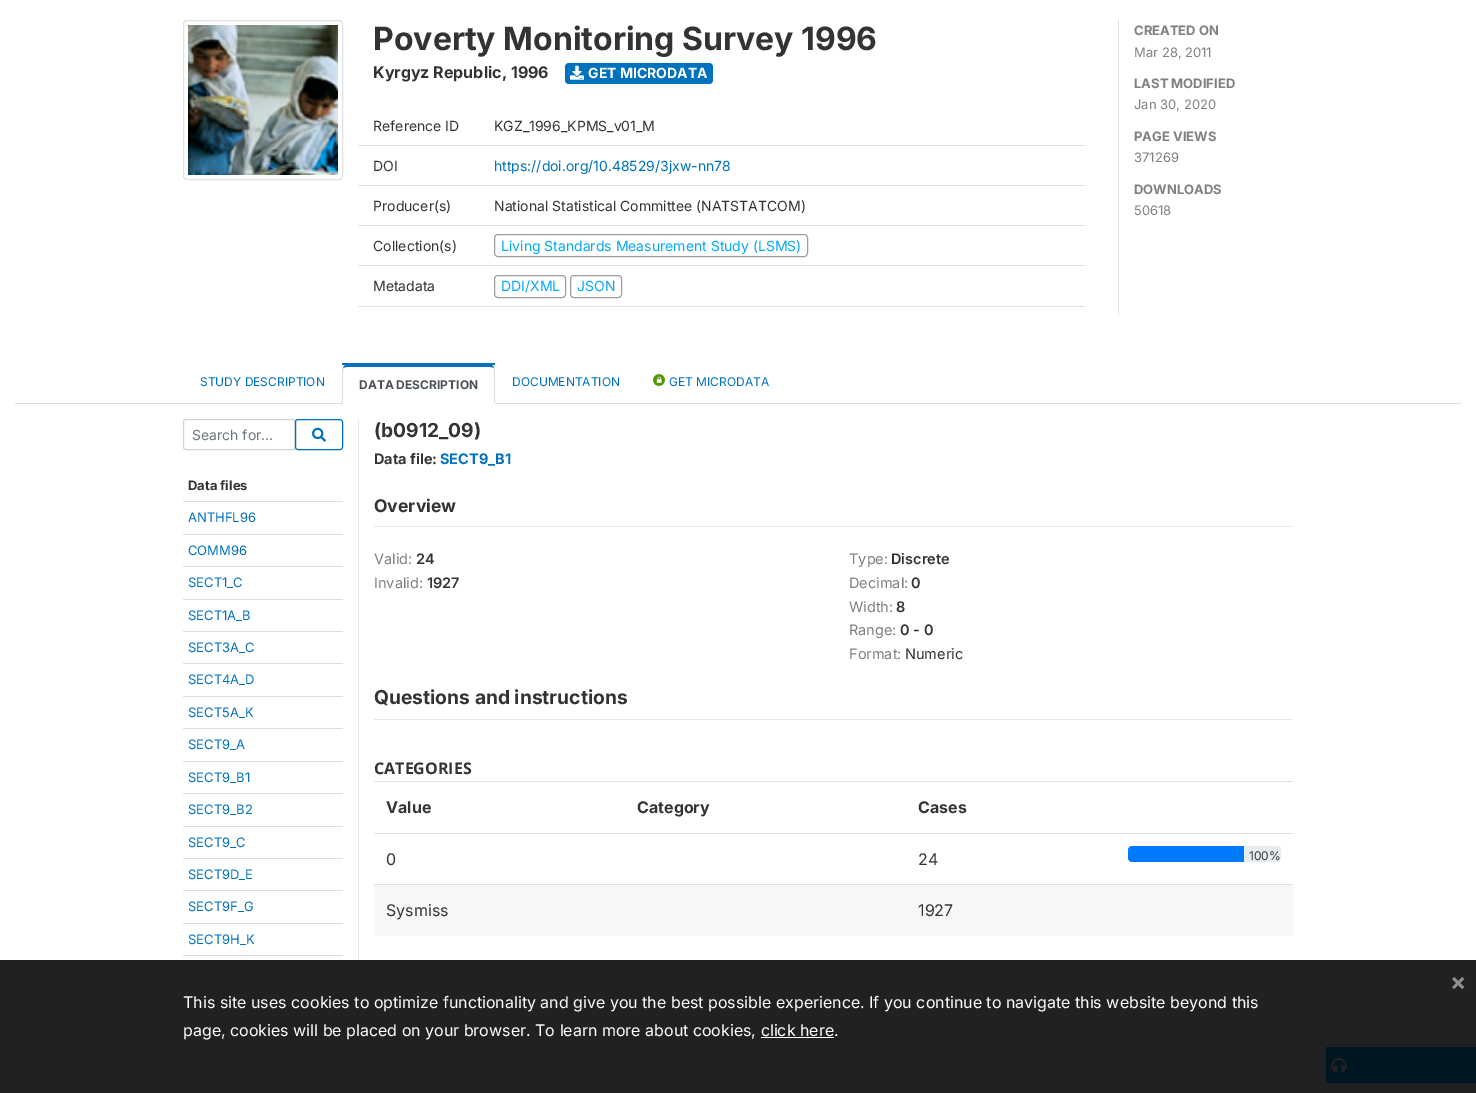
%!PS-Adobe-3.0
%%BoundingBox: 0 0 1476 1093
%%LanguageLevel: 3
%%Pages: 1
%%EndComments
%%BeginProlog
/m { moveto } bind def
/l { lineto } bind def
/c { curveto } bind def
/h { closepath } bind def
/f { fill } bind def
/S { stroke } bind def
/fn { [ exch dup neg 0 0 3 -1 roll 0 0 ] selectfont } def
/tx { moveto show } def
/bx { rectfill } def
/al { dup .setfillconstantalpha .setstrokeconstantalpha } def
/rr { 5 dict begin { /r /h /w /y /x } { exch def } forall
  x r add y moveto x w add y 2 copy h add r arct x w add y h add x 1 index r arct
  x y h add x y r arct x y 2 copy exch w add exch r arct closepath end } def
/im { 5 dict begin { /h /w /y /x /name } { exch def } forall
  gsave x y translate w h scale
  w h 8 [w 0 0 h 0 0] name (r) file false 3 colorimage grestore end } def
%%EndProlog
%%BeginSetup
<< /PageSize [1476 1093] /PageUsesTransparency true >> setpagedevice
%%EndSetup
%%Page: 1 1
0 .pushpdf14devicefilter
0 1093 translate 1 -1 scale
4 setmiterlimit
1 setgray
0 0 1476 1093 bx
0.863 setgray
15 403 1446 1 bx
0.871 0.886 0.902 setrgbcolor
183.5 20.5 159 159 3.5 rr S
(image0.raw) 188 25 150 150 im
/Inter-Bold 32 fn
0.2 setgray
(Poverty Monitoring Survey 1996) 373 50 tx
/Inter-Bold 16 fn
(Kyrgyz Republic, 1996) 373 78 tx
0 0.443 0.741 setrgbcolor
565 63 148 21 4 rr f
(image1.raw) 570 65 14 15 im
/Inter-Bold 14 fn
1 setgray
(GET MICRODATA) 588 78 tx
0.871 0.886 0.902 setrgbcolor
358 145 727 1 bx
/Inter-Regular 14 fn
0.2 setgray
(Reference ID) 373 131 tx
(KGZ_1996_KPMS_v01_M) 494 131 tx
0.871 0.886 0.902 setrgbcolor
358 185 727 1 bx
0.2 setgray
(DOI) 373 171 tx
0 0.443 0.741 setrgbcolor
(https://doi.org/10.48529/3jxw-nn78) 494 171 tx
0.871 0.886 0.902 setrgbcolor
358 225 727 1 bx
0.2 setgray
(Producer\(s\)) 373 211 tx
(National Statistical Committee \(NATSTATCOM\)) 494 211 tx
0.871 0.886 0.902 setrgbcolor
358 265 727 1 bx
0.2 setgray
(Collection\(s\)) 373 251 tx
0.62 setgray
494.5 234.5 313 22 3.5 rr S
0.012 0.663 0.957 setrgbcolor
(Living Standards Measurement Study \(LSMS\)) 501 251 tx
0.871 0.886 0.902 setrgbcolor
358 306 727 1 bx
0.2 setgray
(Metadata) 373 291 tx
0.62 setgray
494.5 275.5 71 22 3.5 rr S
0.012 0.663 0.957 setrgbcolor
(DDI/XML) 501 291 tx
0.62 setgray
570.5 275.5 51 22 3.5 rr S
0.012 0.663 0.957 setrgbcolor
(JSON) 577 291 tx
0.871 0.886 0.902 setrgbcolor
1118 20 1 295 bx
/Inter-Bold 13 fn
0.502 setgray
(CREATED ON) 1134 35 tx
/Inter-Regular 13 fn
(Mar 28, 2011) 1134 57 tx
/Inter-Bold 13 fn
(LAST MODIFIED) 1134 88 tx
/Inter-Regular 13 fn
(Jan 30, 2020) 1134 109 tx
/Inter-Bold 13 fn
(PAGE VIEWS) 1134 141 tx
/Inter-Regular 13 fn
(371269) 1134 162 tx
/Inter-Bold 13 fn
(DOWNLOADS) 1134 194 tx
/Inter-Regular 13 fn
(50618) 1134 215 tx
/Inter-Regular 12 fn
0 0.443 0.741 setrgbcolor
(STUDY DESCRIPTION) 200 386 tx
1 setgray
342 403 153 1 bx
0 0.443 0.737 setrgbcolor
342 363 153 2 bx
346 365 m 345 365 344 366 343 367 c 343 368 l 346 367 l 491 367 l 494 368 l 494 367 l 493 366 492 365 491 365 c h f
0.863 setgray
495 404 m 495 369 l 495 368 494.5 367.5 494 366.5 c 493.5 368 l 494.5 369 494 399 494 403 c h f
1 setgray
495 404 m 494 403 l 343 403 l 342 404 l h f
0.863 setgray
342 404 m 343 403 l 343 399 342.5 369 343.5 368 c 343 366.5 l 342.5 367.5 342 368 342 369 c h f
/Inter-Bold 12 fn
0.286 0.314 0.341 setrgbcolor
(DATA DESCRIPTION) 359 389 tx
/Inter-Regular 12 fn
0 0.443 0.741 setrgbcolor
(DOCUMENTATION) 512 386 tx
(image2.raw) 653 374 12 12 im
(GET MICRODATA) 669 386 tx
0.808 0.831 0.855 setrgbcolor
186 419.5 m 294.5 419.5 l 294.5 449.5 l 186 449.5 l 184.5 449.5 183.5 448.5 183.5 447 c 183.5 422 l 183.5 420.5 184.5 419.5 186 419.5 c h S
/Inter-Regular 14 fn
0.424 0.459 0.49 setrgbcolor
(Search for...) 192 440 tx
0 0.443 0.741 setrgbcolor
295.5 419.5 47 30 2.5 rr S
(image3.raw) 312 427 14 15 im
/Inter-Bold 13 fn
0.2 setgray
(Data files) 188 490 tx
0.867 setgray
183 501 160 1 bx
/Inter-Regular 13 fn
0 0.443 0.741 setrgbcolor
(ANTHFL96) 188 522 tx
0.867 setgray
183 534 160 1 bx
0 0.443 0.741 setrgbcolor
(COMM96) 188 555 tx
0.867 setgray
183 566 160 1 bx
0 0.443 0.741 setrgbcolor
(SECT1_C) 188 587 tx
0.867 setgray
183 599 160 1 bx
0 0.443 0.741 setrgbcolor
(SECT1A_B) 188 620 tx
0.867 setgray
183 631 160 1 bx
0 0.443 0.741 setrgbcolor
(SECT3A_C) 188 652 tx
0.867 setgray
183 663 160 1 bx
0 0.443 0.741 setrgbcolor
(SECT4A_D) 188 684 tx
0.867 setgray
183 696 160 1 bx
0 0.443 0.741 setrgbcolor
(SECT5A_K) 188 717 tx
0.867 setgray
183 728 160 1 bx
0 0.443 0.741 setrgbcolor
(SECT9_A) 188 749 tx
0.867 setgray
183 761 160 1 bx
0 0.443 0.741 setrgbcolor
(SECT9_B1) 188 782 tx
0.867 setgray
183 793 160 1 bx
0 0.443 0.741 setrgbcolor
(SECT9_B2) 188 814 tx
0.867 setgray
183 826 160 1 bx
0 0.443 0.741 setrgbcolor
(SECT9_C) 188 847 tx
0.867 setgray
183 858 160 1 bx
0 0.443 0.741 setrgbcolor
(SECT9D_E) 188 879 tx
0.867 setgray
183 890 160 1 bx
0 0.443 0.741 setrgbcolor
(SECT9F_G) 188 911 tx
0.867 setgray
183 923 160 1 bx
0 0.443 0.741 setrgbcolor
(SECT9H_K) 188 944 tx
0.867 setgray
183 955 160 1 bx
183 988 160 1 bx
183 1020 160 1 bx
183 1053 160 1 bx
183 1085 160 1 bx
0.91 setgray
358 419 1 674 bx
/Inter-Bold 19.25 fn
0.2 setgray
(\(b0912_09\)) 374 437 tx
/Inter-Bold 14.5 fn
(Data file:) 374 464 tx
0 0.443 0.741 setrgbcolor
(SECT9_B1) 440 464 tx
0.91 setgray
374 526 919 1 bx
/Inter-Bold 17.5 fn
0.2 setgray
(Overview) 374 512 tx
/Inter-Regular 14.5 fn
0.502 setgray
(Valid:) 374 564 tx
/Inter-SemiBold 14.5 fn
0.2 setgray
(24) 416 564 tx
/Inter-Regular 14.5 fn
0.502 setgray
(Invalid:) 374 588 tx
/Inter-SemiBold 14.5 fn
0.2 setgray
(1927) 427 588 tx
/Inter-Regular 14.5 fn
0.502 setgray
(Type:) 849 564 tx
/Inter-SemiBold 14.5 fn
0.2 setgray
(Discrete) 891 564 tx
/Inter-Regular 14.5 fn
0.502 setgray
(Decimal:) 849 588 tx
/Inter-SemiBold 14.5 fn
0.2 setgray
(0) 911 588 tx
/Inter-Regular 14.5 fn
0.502 setgray
(Width:) 849 612 tx
/Inter-SemiBold 14.5 fn
0.2 setgray
(8) 896 612 tx
/Inter-Regular 14.5 fn
0.502 setgray
(Range:) 849 635 tx
/Inter-SemiBold 14.5 fn
0.2 setgray
(0 - 0) 900 635 tx
/Inter-Regular 14.5 fn
0.502 setgray
(Format:) 849 659 tx
0.2 setgray
(Numeric) 905 659 tx
0.91 setgray
374 719 919 1 bx
/Inter-Bold 19.25 fn
0.2 setgray
(Questions and instructions) 374 704 tx
/OpenSans-Bold 16 fn
(CATEGORIES) 374 774 tx
0.871 0.886 0.902 setrgbcolor
374 781 919 1 bx
/Inter-Bold 16 fn
0.2 setgray
(Value) 386 813 tx
(Category) 637 813 tx
(Cases) 918 813 tx
/Inter-Regular 16 fn
(0) 386 865 tx
(24) 918 865 tx
0.871 0.886 0.902 setrgbcolor
374 833 919 1 bx
0.914 0.925 0.937 setrgbcolor
1128 846 153 16 4 rr f
0 0.482 1 setrgbcolor
1132 846 m 1244 846 l 1244 862 l 1132 862 l 1130 862 1128 860 1128 858 c 1128 850 l 1128 848 1130 846 1132 846 c h f
/Inter-Regular 12 fn
0.2 setgray
(100%) 1249 860 tx
0.871 0.886 0.902 setrgbcolor
374 884 919 1 bx
0.969 0.969 0.976 setrgbcolor
374 885 919 51 bx
/Inter-Regular 16 fn
0.2 setgray
(Sysmiss) 386 916 tx
(1927) 918 916 tx
0.012 0.663 0.957 setrgbcolor
1326 1047 150 36 bx
(image4.raw) 1331 1058 16 14 im
0.87 al
0 setgray
0 960 1476 133 bx
/Inter-Bold 24 fn
1 al
0.565 setgray
(×) 1450 990 tx
/Inter-Regular 16 fn
1 setgray
(This site uses cookies to optimize functionality and give you the best possible experience. If you continue to navigate this website beyond this) 183 1008 tx
(page, cookies will be placed on your browser. To learn more about cookies, click here.) 183 1036 tx
761 1037 73 1 bx
.poppdf14devicefilter showpage
%%EOF
